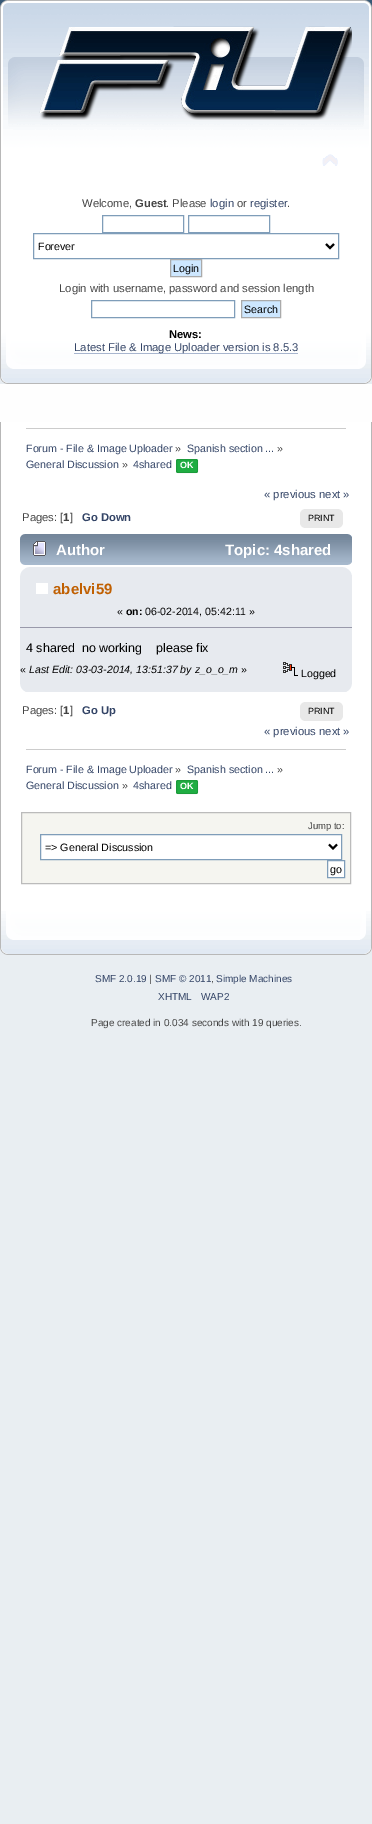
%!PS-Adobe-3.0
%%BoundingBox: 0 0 372 1824
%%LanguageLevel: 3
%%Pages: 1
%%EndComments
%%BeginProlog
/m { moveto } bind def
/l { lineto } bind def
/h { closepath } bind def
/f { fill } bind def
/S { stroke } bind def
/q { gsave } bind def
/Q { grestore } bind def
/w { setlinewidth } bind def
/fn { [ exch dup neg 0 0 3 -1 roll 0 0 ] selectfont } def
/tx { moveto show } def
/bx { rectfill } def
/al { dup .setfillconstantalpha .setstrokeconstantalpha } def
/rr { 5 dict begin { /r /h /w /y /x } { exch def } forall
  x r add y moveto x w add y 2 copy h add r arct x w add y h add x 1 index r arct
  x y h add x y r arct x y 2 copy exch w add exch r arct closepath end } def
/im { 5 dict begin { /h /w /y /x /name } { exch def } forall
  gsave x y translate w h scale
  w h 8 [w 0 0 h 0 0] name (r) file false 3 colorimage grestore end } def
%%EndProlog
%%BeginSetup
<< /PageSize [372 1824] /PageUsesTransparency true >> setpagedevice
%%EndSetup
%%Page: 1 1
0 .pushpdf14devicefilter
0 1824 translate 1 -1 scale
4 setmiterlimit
0.914 0.933 0.949 setrgbcolor
0 0 372 1824 bx
0.996 setgray
0 384 372 38 bx
(image0.raw) 0 0 358 384 im
(image1.raw) 358 0 14 384 im
(image2.raw) 39 26 313 94 im
(image3.raw) 322 154 16 12 im
/LiberationSans-Regular 11.25 fn
0.267 setgray
(Welcome,) 82 207 tx
/LiberationSans-Bold 11.25 fn
(Guest) 135 207 tx
/LiberationSans-Regular 11.25 fn
(. Please) 166 207 tx
0.2 0.267 0.4 setrgbcolor
(login) 210 207 tx
0.267 setgray
(or) 237 207 tx
0.2 0.267 0.4 setrgbcolor
(register) 250 207 tx
0.267 setgray
(.) 287 207 tx
0.498 0.616 0.725 setrgbcolor
102.5 215.5 81 17 rectstroke
188.5 215.5 81 17 rectstroke
33.5 233.5 305 25 rectstroke
0 setgray
2 w
326 244 m 330 248 l 334 244 l S
/LiberationSans-Regular 10.7 fn
(Forever) 38 250 tx
0.804 0.906 1 setrgbcolor
170.5 259.5 m 201.5 259.5 l 201.5 276.5 l 170.5 276.5 l h q f Q
0.667 setgray
1 w
S
0 setgray
(Login) 173 272 tx
/LiberationSans-Regular 11.25 fn
0.267 setgray
(Login with username, password and session length) 59 292 tx
0.498 0.616 0.725 setrgbcolor
91.5 300.5 143 17 rectstroke
0.804 0.906 1 setrgbcolor
241.5 300.5 m 280.5 300.5 l 280.5 317.5 l 241.5 317.5 l h q f Q
0.667 setgray
S
/LiberationSans-Regular 10.7 fn
0 setgray
(Search) 244 313 tx
/LiberationSans-Bold 11.25 fn
(News:) 169 338 tx
0.659 0.714 0.812 setrgbcolor
74 353 224 1 bx
/LiberationSans-Regular 11.25 fn
0.2 0.267 0.4 setrgbcolor
(Latest File & Image Uploader version is 8.5.3) 74 351 tx
1 setgray
1 422 370 489 bx
0.718 setgray
0 422 1 489 bx
371 422 1 489 bx
0.8 setgray
26 428 320 1 bx
/LiberationSans-Regular 10.7 fn
0.2 0.267 0.4 setrgbcolor
(Forum - File & Image Uploader) 26 452 tx
0.267 setgray
(») 175 452 tx
0.2 0.267 0.4 setrgbcolor
(Spanish section ...) 187 452 tx
0.267 setgray
(») 277 452 tx
0.2 0.267 0.4 setrgbcolor
(General Discussion) 26 468 tx
0.267 setgray
(») 122 468 tx
0.2 0.267 0.4 setrgbcolor
(4shared) 133 468 tx
0.122 0.678 0.259 setrgbcolor
176 459 22 14 2 rr f
0.1 al
0 setgray
176.5 459.5 21 13 1.5 rr S
/LiberationSans-Bold 9 fn
1 al
1 setgray
(OK) 180 468 tx
/LiberationSans-Regular 11.25 fn
0.2 0.267 0.4 setrgbcolor
(« previous next ») 264 498 tx
0.267 setgray
(Pages: [) 22 521 tx
/LiberationSans-Bold 11.25 fn
(1) 63 521 tx
/LiberationSans-Regular 11.25 fn
(]) 70 521 tx
/LiberationSans-Bold 11.25 fn
0.2 0.267 0.4 setrgbcolor
(Go Down) 82 521 tx
0.91 setgray
304 509 35 19 bx
(image4.raw) 300 509 4 19 im
(image5.raw) 339 509 4 19 im
/LiberationSans-Regular 9 fn
0 setgray
(PRINT) 308 521 tx
(image6.raw) 20 534 327 31 im
(image7.raw) 347 534 5 31 im
(image8.raw) 33 541 13 15 im
/LiberationSans-Bold 15 fn
1 setgray
(Author) 56 555 tx
(Topic: 4shared) 225 555 tx
0.906 0.918 0.937 setrgbcolor
20 567 332 125 bx
(image9.raw) 20 567 9 9 im
(image10.raw) 343 567 9 8 im
1 setgray
36 583 12 11 bx
0.753 0.376 0.008 setrgbcolor
(abelvi59) 53 594 tx
/LiberationSans-Regular 10.6 fn
0 setgray
(«) 117 615 tx
/LiberationSans-Bold 10.6 fn
(on:) 126 615 tx
/LiberationSans-Regular 10.6 fn
(06-02-2014, 05:42:11 ») 145 615 tx
0.6 0.6 0.667 setrgbcolor
20 627 332 1 bx
/LiberationSans-Regular 12.5 fn
0 setgray
(4 shared  no working    please fix) 26 652 tx
/LiberationSans-Regular 10.6 fn
(«) 20 673 tx
/LiberationSans-Italic 10.6 fn
(Last Edit: 03-03-2014, 13:51:37 by z_o_o_m) 29 673 tx
/LiberationSans-Regular 10.6 fn
(») 241 673 tx
(image11.raw) 283 662 15 14 im
(Logged) 301 677 tx
(image12.raw) 20 684 6 8 im
(image13.raw) 346 684 6 8 im
/LiberationSans-Regular 11.25 fn
0.267 setgray
(Pages: [) 22 714 tx
/LiberationSans-Bold 11.25 fn
(1) 63 714 tx
/LiberationSans-Regular 11.25 fn
(]) 70 714 tx
/LiberationSans-Bold 11.25 fn
0.2 0.267 0.4 setrgbcolor
(Go Up) 82 714 tx
0.91 setgray
304 702 35 19 bx
(image4.raw) 300 702 4 19 im
(image5.raw) 339 702 4 19 im
/LiberationSans-Regular 9 fn
0 setgray
(PRINT) 308 714 tx
/LiberationSans-Regular 11.25 fn
0.2 0.267 0.4 setrgbcolor
(« previous next ») 264 735 tx
0.8 setgray
26 749 320 1 bx
/LiberationSans-Regular 10.7 fn
0.2 0.267 0.4 setrgbcolor
(Forum - File & Image Uploader) 26 773 tx
0.267 setgray
(») 175 773 tx
0.2 0.267 0.4 setrgbcolor
(Spanish section ...) 187 773 tx
0.267 setgray
(») 277 773 tx
0.2 0.267 0.4 setrgbcolor
(General Discussion) 26 789 tx
0.267 setgray
(») 122 789 tx
0.2 0.267 0.4 setrgbcolor
(4shared) 133 789 tx
0.122 0.678 0.259 setrgbcolor
176 780 22 14 2 rr f
0.1 al
0 setgray
176.5 780.5 21 13 1.5 rr S
/LiberationSans-Bold 9 fn
1 al
1 setgray
(OK) 180 789 tx
0.961 0.961 0.941 setrgbcolor
21.5 812.5 m 350.5 812.5 l 350.5 883.5 l 21.5 883.5 l h q f Q
0.733 setgray
S
/LiberationSans-Regular 9.5 fn
0.267 setgray
(Jump to:) 308 829 tx
1 setgray
40.5 834.5 m 341.5 834.5 l 341.5 859.5 l 40.5 859.5 l h q f Q
0.498 0.616 0.725 setrgbcolor
S
0 setgray
2 w
329 844.5 m 333 848.5 l 337 844.5 l S
/LiberationSans-Regular 10.7 fn
(=> General Discussion) 45 851 tx
1 setgray
327.5 860.5 m 344.5 860.5 l 344.5 877.5 l 327.5 877.5 l h q f Q
0.498 0.616 0.725 setrgbcolor
1 w
S
0 setgray
(go) 330 873 tx
(image14.raw) 0 911 360 44 im
(image15.raw) 360 911 12 44 im
/LiberationSans-Regular 10 fn
0.2 0.267 0.4 setrgbcolor
(SMF 2.0.19) 95 982 tx
0.267 setgray
(|) 149 982 tx
0.2 0.267 0.4 setrgbcolor
(SMF © 2011) 155 982 tx
0.267 setgray
(,) 211 982 tx
0.2 0.267 0.4 setrgbcolor
(Simple Machines) 216 982 tx
(XHTML) 158 1000 tx
(WAP2) 201 1000 tx
0.267 setgray
(Page created in 0.034 seconds with 19 queries.) 91 1026 tx
.poppdf14devicefilter showpage
%%EOF
